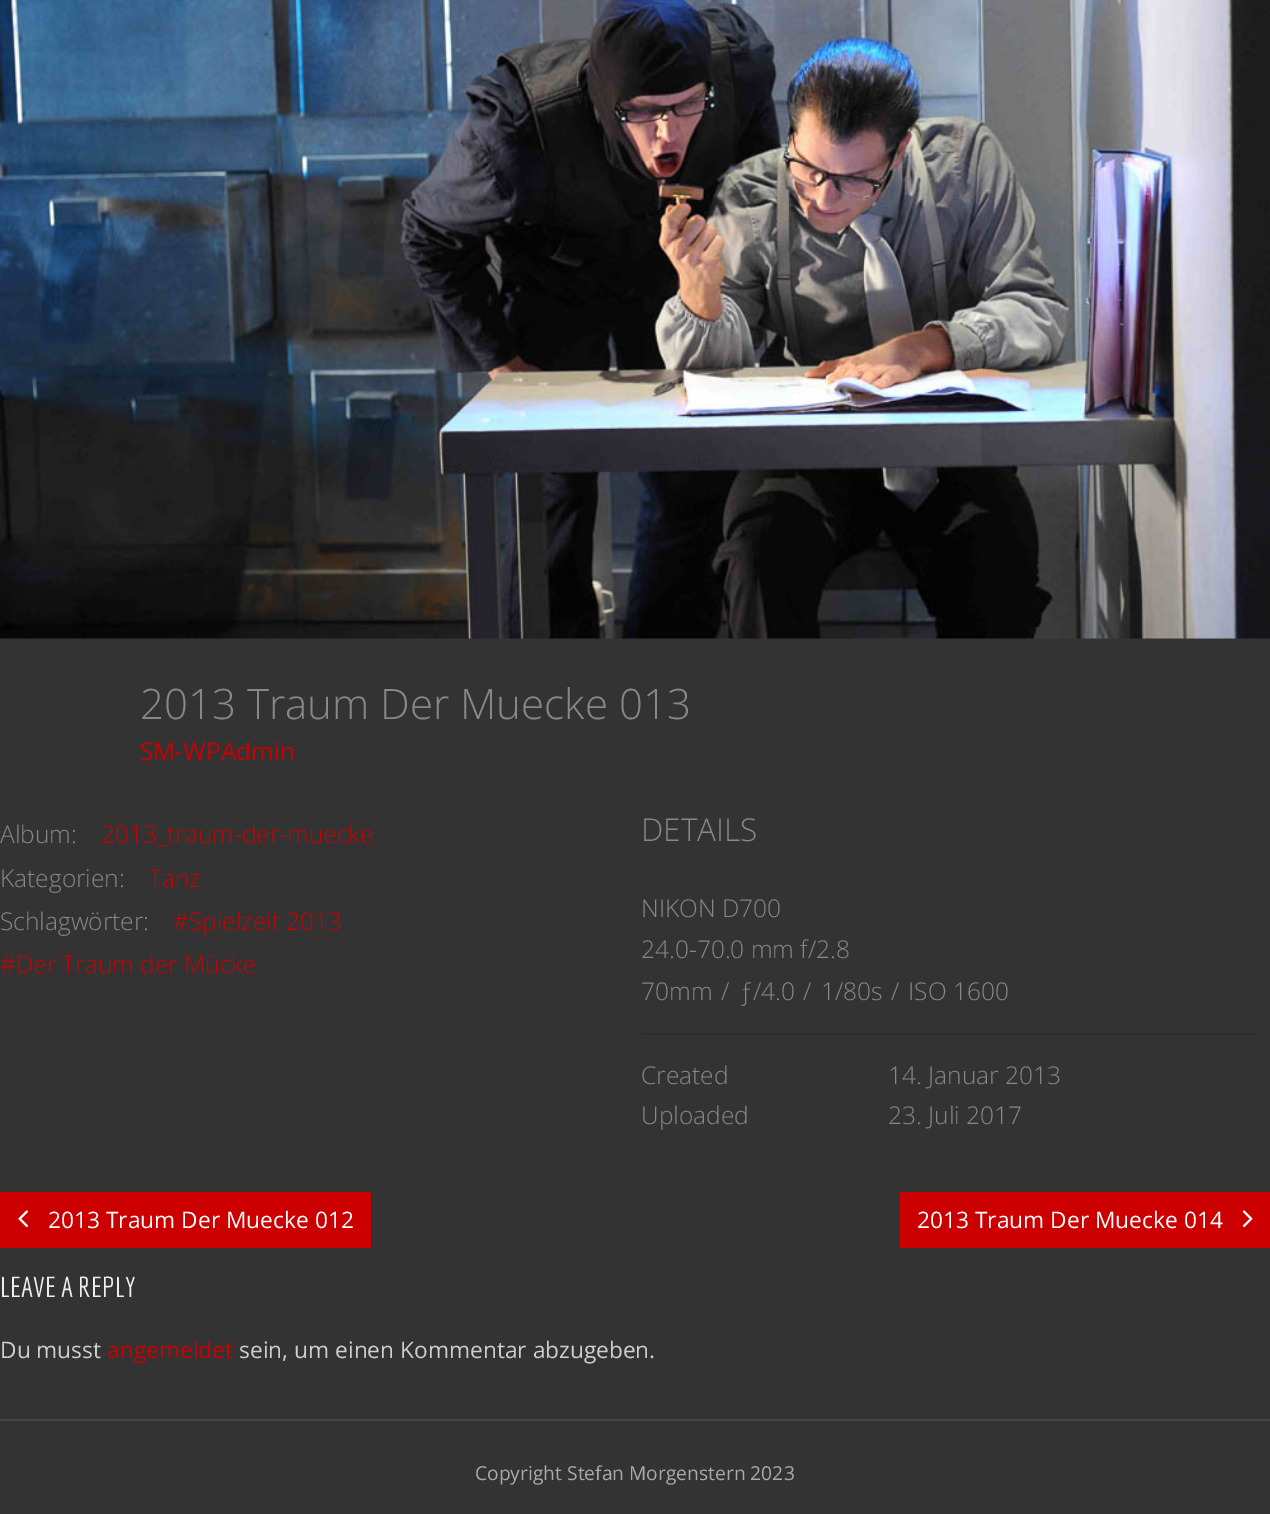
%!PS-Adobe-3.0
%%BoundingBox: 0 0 1270 1514
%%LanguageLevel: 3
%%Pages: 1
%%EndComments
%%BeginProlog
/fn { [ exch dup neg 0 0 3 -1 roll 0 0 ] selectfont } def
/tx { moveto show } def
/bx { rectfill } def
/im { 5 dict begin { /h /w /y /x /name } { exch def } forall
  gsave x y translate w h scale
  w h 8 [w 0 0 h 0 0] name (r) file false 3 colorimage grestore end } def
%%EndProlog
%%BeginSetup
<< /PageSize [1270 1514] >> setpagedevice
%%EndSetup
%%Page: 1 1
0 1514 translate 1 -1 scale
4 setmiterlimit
0.2 setgray
0 0 1270 1514 bx
(image0.raw) 0 0 1270 639 im
/OpenSans-Light 42 fn
0.533 setgray
(2013 Traum Der Muecke 013) 140 719 tx
/OpenSans-Regular 24.5 fn
0.8 0 0 setrgbcolor
(SM-WPAdmin) 140 760 tx
/OpenSans-Light 24.5 fn
0.533 setgray
(Album:) 0 843 tx
0.8 0 0 setrgbcolor
(2013_traum-der-muecke) 101 843 tx
0.533 setgray
(Kategorien:) 0 887 tx
0.8 0 0 setrgbcolor
(Tanz) 149 887 tx
(#Spielzeit 2013) 173 930 tx
(#Der Traum der Mücke) 0 973 tx
0.533 setgray
(Schlagwörter:) 0 930 tx
/OpenSans-Light 31.5 fn
(DETAILS) 641 841 tx
0.18 setgray
642 1033 616 2 bx
/OpenSans-Light 24.5 fn
0.533 setgray
(NIKON D700) 641 917 tx
(24.0-70.0 mm f/2.8) 641 958 tx
(70mm) 641 1000 tx
(/) 721 1000 tx
(ƒ/4.0) 739 1000 tx
(/) 803 1000 tx
(1/80s) 821 1000 tx
(/) 891 1000 tx
(ISO 1600) 908 1000 tx
(Created) 641 1084 tx
(14. Januar 2013) 888 1084 tx
(Uploaded) 641 1124 tx
(23. Juli 2017) 888 1124 tx
0.8 0 0 setrgbcolor
0 1192 371 56 bx
(image1.raw) 18 1210 11 18 im
/OpenSans-Regular 22.75 fn
1 setgray
(2013 Traum Der Muecke 012) 48 1228 tx
0.8 0 0 setrgbcolor
900 1192 370 56 bx
1 setgray
(2013 Traum Der Muecke 014) 917 1228 tx
(image2.raw) 1242 1210 11 18 im
/Economica-Regular 28 fn
0.933 setgray
(LEAVE A REPLY) 0 1297 tx
/OpenSans-Regular 22.75 fn
0.808 setgray
(Du musst) 0 1358 tx
0.8 0 0 setrgbcolor
(angemeldet) 107 1358 tx
0.808 setgray
(sein, um einen Kommentar abzugeben.) 239 1358 tx
0.267 setgray
0 1419 1270 2 bx
/OpenSans-Regular 19.25 fn
0.667 setgray
(Copyright Stefan Morgenstern 2023) 475 1480 tx
showpage
%%EOF
